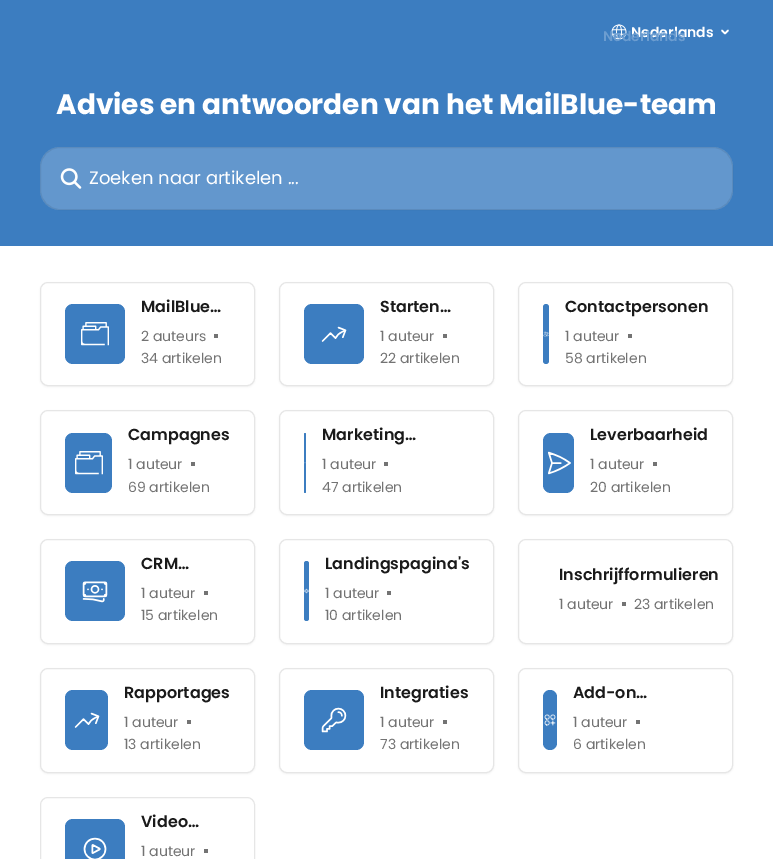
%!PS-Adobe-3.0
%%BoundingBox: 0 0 773 859
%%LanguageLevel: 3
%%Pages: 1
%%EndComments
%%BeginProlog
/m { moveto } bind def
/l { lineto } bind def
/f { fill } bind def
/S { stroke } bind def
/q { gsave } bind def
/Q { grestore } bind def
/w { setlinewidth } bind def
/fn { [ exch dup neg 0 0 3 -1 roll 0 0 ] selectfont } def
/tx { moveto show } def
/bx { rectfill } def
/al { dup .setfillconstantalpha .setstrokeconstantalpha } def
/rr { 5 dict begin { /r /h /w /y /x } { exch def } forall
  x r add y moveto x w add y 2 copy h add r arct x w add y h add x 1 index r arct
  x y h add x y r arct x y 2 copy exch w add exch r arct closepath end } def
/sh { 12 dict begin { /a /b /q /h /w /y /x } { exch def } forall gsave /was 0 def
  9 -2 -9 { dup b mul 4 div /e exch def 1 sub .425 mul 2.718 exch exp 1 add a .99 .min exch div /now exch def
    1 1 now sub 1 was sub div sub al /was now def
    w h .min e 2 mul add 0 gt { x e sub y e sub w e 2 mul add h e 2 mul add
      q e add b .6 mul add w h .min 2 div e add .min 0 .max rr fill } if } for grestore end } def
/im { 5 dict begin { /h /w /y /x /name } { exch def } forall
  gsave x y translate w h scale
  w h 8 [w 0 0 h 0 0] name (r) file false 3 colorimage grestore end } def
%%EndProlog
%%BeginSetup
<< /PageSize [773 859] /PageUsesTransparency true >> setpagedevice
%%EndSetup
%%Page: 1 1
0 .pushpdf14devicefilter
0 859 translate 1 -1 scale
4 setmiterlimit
1 setgray
0 0 773 859 bx
0.235 0.49 0.753 setrgbcolor
0 0 773 246 bx
(image0.raw) 611 24 16 16 im
/Poppins-SemiBold 14 fn
1 setgray
(Nederlands) 631 37 tx
1.5 w
1 setlinecap
1 setlinejoin
722 30.5 m 725 33.5 l 728 30.5 l S
0.424 0.616 0.816 setrgbcolor
(Nederlands) 603 41 tx
/Poppins-Bold 28 fn
1 setgray
(Advies en antwoorden van het MailBlue-team) 56 114 tx
0.2 al
40 147 693 63 20 rr f
0.08 al
0 setgray
1 w
0 setlinecap
0 setlinejoin
40.5 147.5 692 62 19.5 rr S
1 al
(image1.raw) 60 168 22 21 im
/Poppins-Regular 18 fn
1 setgray
(Zoeken naar artikelen ...) 89 184 tx
0 setgray
40 283 215 104 8 1 0.05 sh
1 setgray
40.5 282.5 214 103 7.5 rr q f Q
0.902 setgray
S
0.235 0.49 0.753 setrgbcolor
65 304 60 60 8 rr f
(image2.raw) 81 322 28 24 im
/Poppins-SemiBold 16 fn
0.102 setgray
(MailBlue…) 141 312 tx
/Poppins-Regular 14 fn
0.451 setgray
(2 auteurs) 141 341 tx
214 334 4 4 bx
(34 artikelen) 141 363 tx
0 setgray
279 283 215 104 8 1 0.05 sh
1 setgray
279.5 282.5 214 103 7.5 rr q f Q
0.902 setgray
S
0.235 0.49 0.753 setrgbcolor
304 304 60 60 8 rr f
(image3.raw) 321 326 26 16 im
/Poppins-SemiBold 16 fn
0.102 setgray
(Starten…) 380 312 tx
/Poppins-Regular 14 fn
0.451 setgray
(1 auteur) 380 341 tx
443 334 4 4 bx
(22 artikelen) 380 363 tx
0 setgray
518 283 215 104 8 1 0.05 sh
1 setgray
518.5 282.5 214 103 7.5 rr q f Q
0.902 setgray
S
0.235 0.49 0.753 setrgbcolor
543 304 6 60 3 rr f
(image4.raw) 543 331 6 6 im
/Poppins-SemiBold 16 fn
0.102 setgray
(Contactpersonen) 565 312 tx
/Poppins-Regular 14 fn
0.451 setgray
(1 auteur) 565 341 tx
628 334 4 4 bx
(58 artikelen) 565 363 tx
0 setgray
40 411 215 105 8 1 0.05 sh
1 setgray
40.5 410.5 214 104 7.5 rr q f Q
0.902 setgray
S
0.235 0.49 0.753 setrgbcolor
65 433 47 60 8 rr f
(image2.raw) 75 451 28 24 im
/Poppins-SemiBold 16 fn
0.102 setgray
(Campagnes) 128 440 tx
/Poppins-Regular 14 fn
0.451 setgray
(1 auteur) 128 469 tx
191 462 4 4 bx
(69 artikelen) 128 492 tx
0 setgray
279 411 215 105 8 1 0.05 sh
1 setgray
279.5 410.5 214 104 7.5 rr q f Q
0.902 setgray
S
0.235 0.49 0.753 setrgbcolor
304 433 2 60 1 rr f
(image5.raw) 304 462 2 2 im
/Poppins-SemiBold 16 fn
0.102 setgray
(Marketing…) 322 440 tx
/Poppins-Regular 14 fn
0.451 setgray
(1 auteur) 322 469 tx
384 462 4 4 bx
(47 artikelen) 322 492 tx
0 setgray
518 411 215 105 8 1 0.05 sh
1 setgray
518.5 410.5 214 104 7.5 rr q f Q
0.902 setgray
S
0.235 0.49 0.753 setrgbcolor
543 433 31 60 8 rr f
(image6.raw) 548 451 23 24 im
/Poppins-SemiBold 16 fn
0.102 setgray
(Leverbaarheid) 590 440 tx
/Poppins-Regular 14 fn
0.451 setgray
(1 auteur) 590 469 tx
653 462 4 4 bx
(20 artikelen) 590 492 tx
0 setgray
40 540 215 105 8 1 0.05 sh
1 setgray
40.5 539.5 214 104 7.5 rr q f Q
0.902 setgray
S
0.235 0.49 0.753 setrgbcolor
65 561 60 60 8 rr f
(image7.raw) 82 581 26 22 im
/Poppins-SemiBold 16 fn
0.102 setgray
(CRM…) 141 569 tx
/Poppins-Regular 14 fn
0.451 setgray
(1 auteur) 141 598 tx
204 591 4 4 bx
(15 artikelen) 141 620 tx
0 setgray
279 540 215 105 8 1 0.05 sh
1 setgray
279.5 539.5 214 104 7.5 rr q f Q
0.902 setgray
S
0.235 0.49 0.753 setrgbcolor
304 561 5 60 2.5 rr f
(image8.raw) 304 588 5 6 im
/Poppins-SemiBold 16 fn
0.102 setgray
(Landingspagina's) 325 569 tx
/Poppins-Regular 14 fn
0.451 setgray
(1 auteur) 325 598 tx
387 591 4 4 bx
(10 artikelen) 325 620 tx
0 setgray
518 540 215 105 8 1 0.05 sh
1 setgray
518.5 539.5 214 104 7.5 rr q f Q
0.902 setgray
S
/Poppins-SemiBold 16 fn
0.102 setgray
(Inschrijfformulieren) 559 580 tx
/Poppins-Regular 14 fn
0.451 setgray
(1 auteur) 559 609 tx
622 602 4 4 bx
(23 artikelen) 634 609 tx
0 setgray
40 669 215 105 8 1 0.05 sh
1 setgray
40.5 668.5 214 104 7.5 rr q f Q
0.902 setgray
S
0.235 0.49 0.753 setrgbcolor
65 690 43 60 8 rr f
(image3.raw) 74 712 26 16 im
/Poppins-SemiBold 16 fn
0.102 setgray
(Rapportages) 124 698 tx
/Poppins-Regular 14 fn
0.451 setgray
(1 auteur) 124 727 tx
187 720 4 4 bx
(13 artikelen) 124 749 tx
0 setgray
279 669 215 105 8 1 0.05 sh
1 setgray
279.5 668.5 214 104 7.5 rr q f Q
0.902 setgray
S
0.235 0.49 0.753 setrgbcolor
304 690 60 60 8 rr f
(image9.raw) 321 707 26 26 im
/Poppins-SemiBold 16 fn
0.102 setgray
(Integraties) 380 698 tx
/Poppins-Regular 14 fn
0.451 setgray
(1 auteur) 380 727 tx
443 720 4 4 bx
(73 artikelen) 380 749 tx
0 setgray
518 669 215 105 8 1 0.05 sh
1 setgray
518.5 668.5 214 104 7.5 rr q f Q
0.902 setgray
S
0.235 0.49 0.753 setrgbcolor
543 690 14 60 7 rr f
(image10.raw) 544 714 12 12 im
/Poppins-SemiBold 16 fn
0.102 setgray
(Add-on…) 573 698 tx
/Poppins-Regular 14 fn
0.451 setgray
(1 auteur) 573 727 tx
636 720 4 4 bx
(6 artikelen) 573 749 tx
0.902 setgray
40.5 797.5 214 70 7.5 rr S
0.235 0.49 0.753 setrgbcolor
65 819 60 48 8 rr f
(image11.raw) 83 837 24 22 im
/Poppins-SemiBold 16 fn
0.102 setgray
(Video…) 141 827 tx
/Poppins-Regular 14 fn
0.451 setgray
(1 auteur) 141 856 tx
204 849 4 4 bx
.poppdf14devicefilter showpage
%%EOF
